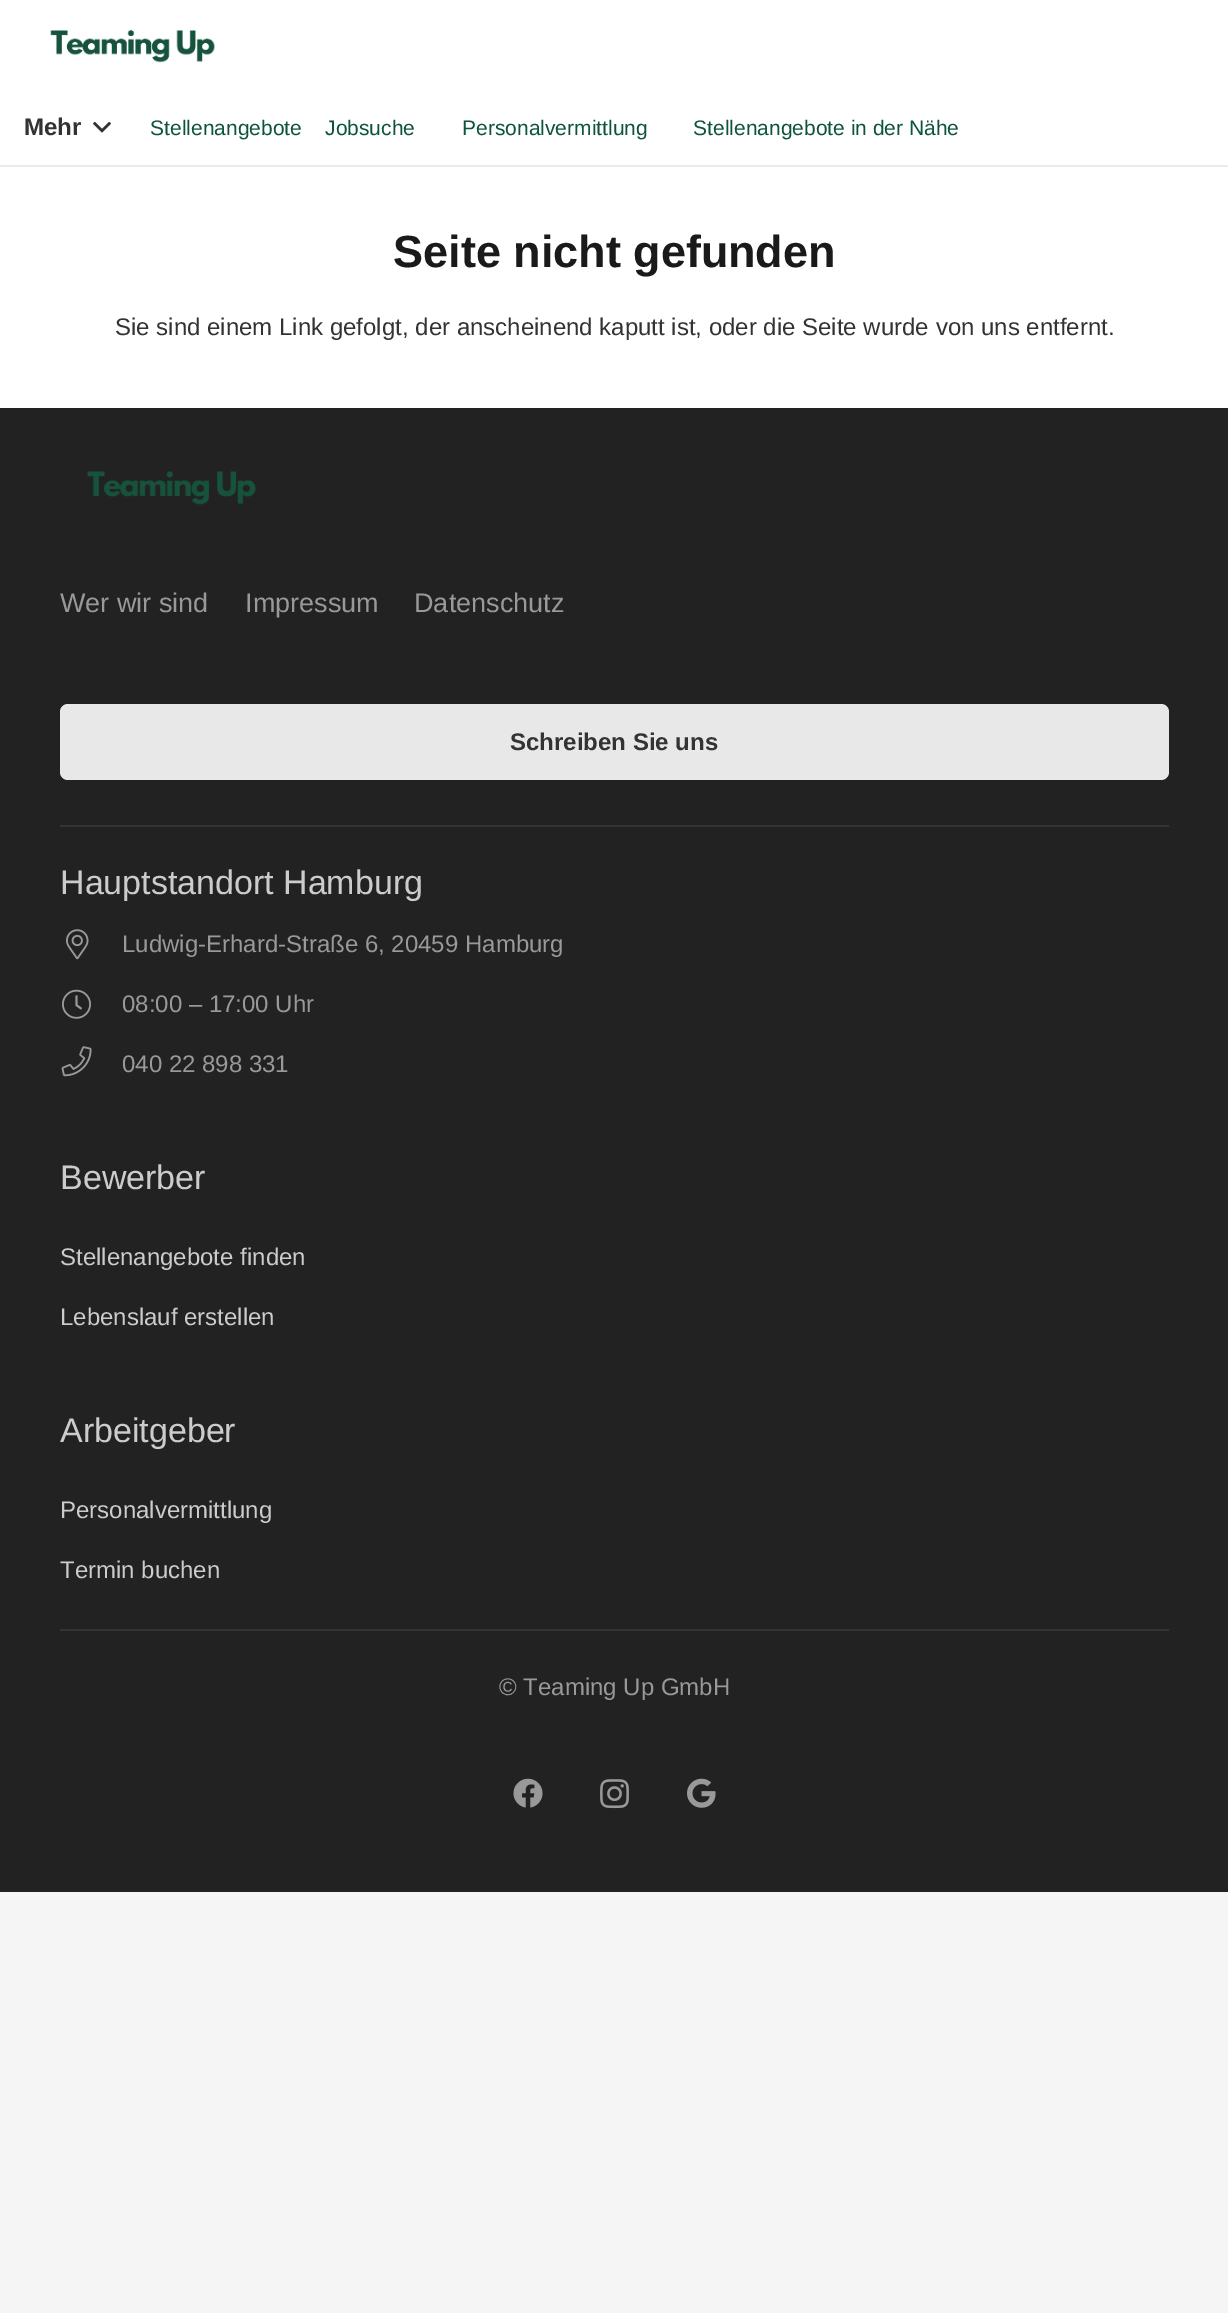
%!PS-Adobe-3.0
%%BoundingBox: 0 0 1228 2313
%%LanguageLevel: 3
%%Pages: 1
%%EndComments
%%BeginProlog
/m { moveto } bind def
/l { lineto } bind def
/h { closepath } bind def
/f { fill } bind def
/fn { [ exch dup neg 0 0 3 -1 roll 0 0 ] selectfont } def
/tx { moveto show } def
/bx { rectfill } def
/rr { 5 dict begin { /r /h /w /y /x } { exch def } forall
  x r add y moveto x w add y 2 copy h add r arct x w add y h add x 1 index r arct
  x y h add x y r arct x y 2 copy exch w add exch r arct closepath end } def
/im { 5 dict begin { /h /w /y /x /name } { exch def } forall
  gsave x y translate w h scale
  w h 8 [w 0 0 h 0 0] name (r) file false 3 colorimage grestore end } def
%%EndProlog
%%BeginSetup
<< /PageSize [1228 2313] >> setpagedevice
%%EndSetup
%%Page: 1 1
0 2313 translate 1 -1 scale
4 setmiterlimit
0.961 setgray
0 0 1228 2313 bx
1 setgray
0 0 1228 408 bx
(image0.raw) 50 30 165 33 im
0.922 setgray
0 165 m 0 167 l 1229 167 l 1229 92 l 1228 92 l 1228 165 l h f
/LiberationSans-Bold 24 fn
0.2 setgray
(Mehr) 24 135 tx
(image1.raw) 93 121 18 12 im
/LiberationSans-Regular 21 fn
0.051 0.329 0.231 setrgbcolor
(Stellenangebote) 150 135 tx
(Jobsuche) 325 135 tx
(Personalvermittlung) 462 135 tx
(Stellenangebote in der Nähe) 693 135 tx
/LiberationSans-Bold 45 fn
0.102 setgray
(Seite nicht gefunden) 393 267 tx
/LiberationSans-Regular 24 fn
0.2 setgray
(Sie sind einem Link gefolgt, der anscheinend kaputt ist, oder die Seite wurde von uns entfernt.) 115 335 tx
0.133 setgray
0 408 1228 1484 bx
(image2.raw) 87 471 169 34 im
/LiberationSans-Regular 27 fn
0.6 setgray
(Wer wir sind) 60 612 tx
(Impressum) 245 612 tx
(Datenschutz) 414 612 tx
0.91 setgray
60 704 1109 76 8 rr f
/LiberationSans-Bold 24 fn
0.2 setgray
(Schreiben Sie uns) 510 750 tx
60 825 1109 2 bx
/LiberationSans-Regular 34 fn
0.8 setgray
(Hauptstandort Hamburg) 60 894 tx
(image3.raw) 66 929 23 31 im
/LiberationSans-Regular 24 fn
0.6 setgray
(Ludwig-Erhard-Straße 6, 20459 Hamburg) 122 952 tx
(image4.raw) 62 989 29 30 im
(08:00 – 17:00 Uhr) 122 1012 tx
(image5.raw) 61 1046 31 31 im
(040 22 898 331) 122 1072 tx
/LiberationSans-Regular 34 fn
0.8 setgray
(Bewerber) 60 1189 tx
/LiberationSans-Regular 24 fn
(Stellenangebote finden) 60 1265 tx
(Lebenslauf erstellen) 60 1325 tx
/LiberationSans-Regular 34 fn
(Arbeitgeber) 60 1442 tx
/LiberationSans-Regular 24 fn
(Personalvermittlung) 60 1518 tx
(Termin buchen) 60 1578 tx
0.2 setgray
60 1629 1109 2 bx
0.6 setgray
(© Teaming Up GmbH) 499 1695 tx
(image6.raw) 513 1778 30 30 im
(image7.raw) 600 1779 29 30 im
(image8.raw) 687 1778 29 30 im
showpage
%%EOF
